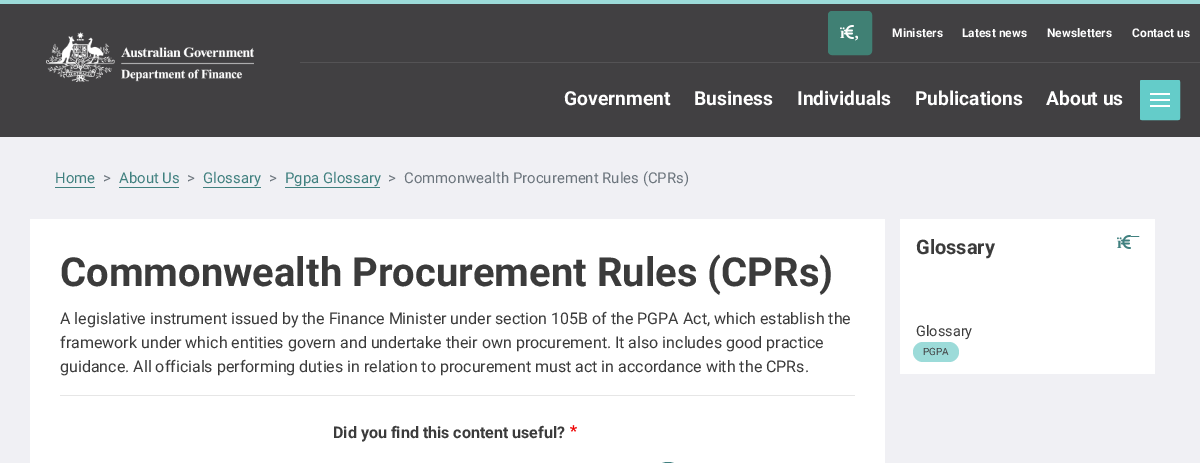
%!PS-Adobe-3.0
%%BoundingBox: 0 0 1200 463
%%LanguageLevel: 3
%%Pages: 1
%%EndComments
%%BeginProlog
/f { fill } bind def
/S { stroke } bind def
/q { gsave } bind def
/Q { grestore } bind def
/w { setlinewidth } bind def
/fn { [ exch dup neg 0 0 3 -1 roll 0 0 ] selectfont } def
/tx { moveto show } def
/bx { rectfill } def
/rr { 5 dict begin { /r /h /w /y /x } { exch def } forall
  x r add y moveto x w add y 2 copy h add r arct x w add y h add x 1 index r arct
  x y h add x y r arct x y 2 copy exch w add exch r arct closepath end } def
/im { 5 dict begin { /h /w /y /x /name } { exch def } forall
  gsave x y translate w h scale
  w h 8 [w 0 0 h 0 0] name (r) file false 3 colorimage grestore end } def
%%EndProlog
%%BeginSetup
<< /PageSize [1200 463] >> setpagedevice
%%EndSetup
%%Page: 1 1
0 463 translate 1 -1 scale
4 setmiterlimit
0.941 0.941 0.957 setrgbcolor
0 0 1200 463 bx
0.255 0.251 0.259 setrgbcolor
0 4 1200 133 bx
0.612 0.859 0.851 setrgbcolor
0 0 1200 4 bx
0.329 0.325 0.333 setrgbcolor
300 62 900 1 bx
(image0.raw) 46 32 208 50 im
0.251 0.502 0.455 setrgbcolor
829 12 42 42 3 rr q f Q
2 w
S
(image1.raw) 844 25 10 14 im
/LiberationSerif-Bold 16 fn
1 setgray
(ï) 840 38 tx
(‚) 854 38 tx
/Roboto-Bold 12 fn
(Ministers) 892 37 tx
(Latest news) 962 37 tx
(Newsletters) 1047 37 tx
(Contact us) 1132 37 tx
0.392 0.8 0.788 setrgbcolor
1140 80 40 40 2 rr f
(image2.raw) 1150 93 20 14 im
1 w
1140.5 80.5 39 39 1.5 rr S
/Roboto-Bold 19.25 fn
1 setgray
(Government) 564 105 tx
(Business) 694 105 tx
(Individuals) 797 105 tx
(Publications) 915 105 tx
(About us) 1046 105 tx
/Roboto-Regular 14.9 fn
0.251 0.502 0.498 setrgbcolor
(Home) 55 183 tx
55 187 40 1 bx
0.424 0.459 0.49 setrgbcolor
(>) 103 183 tx
0.251 0.502 0.498 setrgbcolor
(About Us) 119 183 tx
119 187 60 1 bx
0.424 0.459 0.49 setrgbcolor
(>) 187 183 tx
0.251 0.502 0.498 setrgbcolor
(Glossary) 203 183 tx
203 187 58 1 bx
0.424 0.459 0.49 setrgbcolor
(>) 269 183 tx
0.251 0.502 0.498 setrgbcolor
(Pgpa Glossary) 285 183 tx
285 187 95 1 bx
0.424 0.459 0.49 setrgbcolor
(>) 388 183 tx
(Commonwealth Procurement Rules \(CPRs\)) 404 183 tx
1 setgray
30 219 855 244 bx
/Roboto-Bold 40 fn
0.231 setgray
(Commonwealth Procurement Rules \(CPRs\)) 60 286 tx
/Roboto-Regular 16 fn
(A legislative instrument issued by the Finance Minister under section 105B of the PGPA Act, which establish the) 60 324 tx
(framework under which entities govern and undertake their own procurement. It also includes good practice) 60 348 tx
(guidance. All officials performing duties in relation to procurement must act in accordance with the CPRs.) 60 372 tx
0.902 setgray
60 395 795 1 bx
/Roboto-Bold 16 fn
0.231 setgray
(Did you find this content useful?) 333 438 tx
(image3.raw) 570 425 7 7 im
0.251 0.502 0.498 setrgbcolor
648.5 462.5 39 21 19.5 rr S
1 setgray
900 219 255 155 bx
/Roboto-Bold 20 fn
0.231 setgray
(Glossary) 916 254 tx
(image4.raw) 1121 235 10 14 im
/LiberationSerif-Bold 16 fn
0.251 0.502 0.498 setrgbcolor
(¯) 1131 248 tx
(ï) 1117 248 tx
/Roboto-Regular 14.5 fn
0.231 setgray
(Glossary) 916 336 tx
0.612 0.859 0.851 setrgbcolor
913 342 46 20 10 rr f
/Roboto-Regular 10 fn
0.255 0.251 0.259 setrgbcolor
(PGPA) 923 355 tx
showpage
%%EOF
